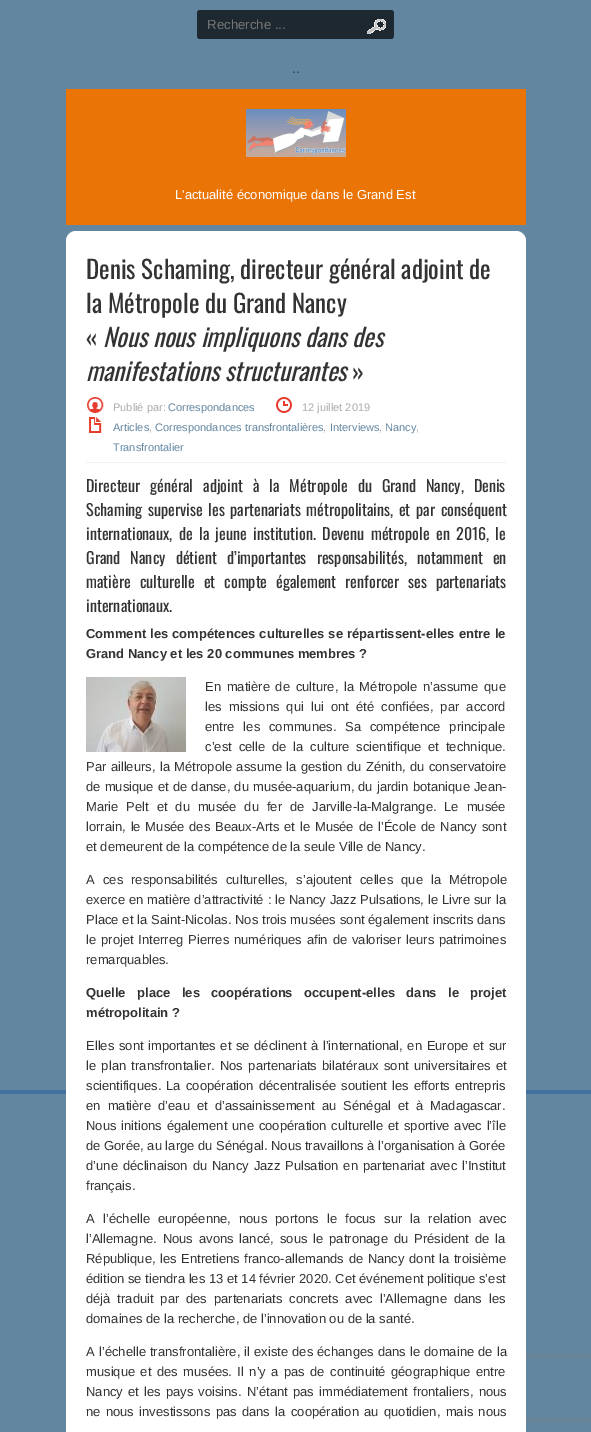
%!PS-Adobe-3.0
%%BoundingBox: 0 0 591 1432
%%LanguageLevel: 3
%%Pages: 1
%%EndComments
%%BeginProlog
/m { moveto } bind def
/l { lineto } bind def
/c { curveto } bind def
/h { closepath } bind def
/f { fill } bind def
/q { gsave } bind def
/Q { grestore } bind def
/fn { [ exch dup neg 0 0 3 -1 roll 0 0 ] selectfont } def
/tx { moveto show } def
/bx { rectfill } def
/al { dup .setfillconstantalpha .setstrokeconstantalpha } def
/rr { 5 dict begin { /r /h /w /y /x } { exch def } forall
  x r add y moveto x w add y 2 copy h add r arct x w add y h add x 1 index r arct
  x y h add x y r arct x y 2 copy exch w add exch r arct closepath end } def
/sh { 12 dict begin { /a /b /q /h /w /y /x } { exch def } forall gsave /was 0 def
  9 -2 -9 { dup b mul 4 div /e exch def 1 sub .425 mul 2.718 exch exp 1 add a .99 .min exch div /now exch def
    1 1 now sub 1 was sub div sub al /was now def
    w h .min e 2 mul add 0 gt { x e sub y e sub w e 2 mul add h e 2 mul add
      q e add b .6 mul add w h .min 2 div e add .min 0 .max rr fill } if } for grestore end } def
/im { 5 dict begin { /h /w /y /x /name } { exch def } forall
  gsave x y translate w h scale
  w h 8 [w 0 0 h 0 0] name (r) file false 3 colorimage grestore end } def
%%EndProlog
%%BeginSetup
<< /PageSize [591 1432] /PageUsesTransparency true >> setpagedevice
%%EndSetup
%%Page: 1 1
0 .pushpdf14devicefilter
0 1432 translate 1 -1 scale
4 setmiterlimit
1 setgray
0 0 591 1432 bx
(image0.raw) 0 49 591 1383 im
0.384 0.522 0.627 setrgbcolor
0 0 591 49 bx
0.114 0.157 0.188 setrgbcolor
197 10 197 29 3 rr f
(image1.raw) 367 19 19 15 im
/LiberationSans-Regular 13.25 fn
0.459 setgray
(Recherche ...) 207 29 tx
/LiberationSans-Regular 13 fn
0.2 setgray
(..) 292 73 tx
0.918 0.455 0.024 setrgbcolor
66 89 460 136 bx
(image2.raw) 246 109 100 48 im
1 setgray
(L'actualité économique dans le Grand Est) 175 199 tx
q
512 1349 m 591 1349 l 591 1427 l 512 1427 l h 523 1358 m 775 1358 l 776 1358 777 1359 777 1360 c 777 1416 l 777 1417 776 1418 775 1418 c 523 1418 l 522 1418 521 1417 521 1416 c 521 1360 l 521 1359 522 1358 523 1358 c h eoclip newpath
0.502 setgray
521 1358 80 60 2 2.5 1 sh
Q
66 231 460 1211 10 rr f
/Oswald-Regular 25 fn
0.2 setgray
(Denis Schaming, directeur général adjoint de) 86 279 tx
(la Métropole du Grand Nancy) 86 313 tx
(«) 86 347 tx
/Oswald-Italic 25 fn
(Nous nous impliquons dans des) 103 347 tx
(manifestations structurantes) 86 381 tx
/Oswald-Regular 25 fn
(») 352 381 tx
0.949 setgray
86 462 420 1 bx
(image3.raw) 87 397 17 16 im
/LiberationSans-Regular 11 fn
0.667 setgray
(Publié par:) 113 411 tx
0.384 0.522 0.627 setrgbcolor
(Correspondances) 168 411 tx
(image4.raw) 276 397 16 16 im
0.667 setgray
(12 juillet 2019) 302 411 tx
(image5.raw) 89 417 13 16 im
0.384 0.522 0.627 setrgbcolor
(Articles) 113 431 tx
0.667 setgray
(,) 149 431 tx
0.384 0.522 0.627 setrgbcolor
(Correspondances transfrontalières) 155 431 tx
0.667 setgray
(,) 323 431 tx
0.384 0.522 0.627 setrgbcolor
(Interviews) 330 431 tx
0.667 setgray
(,) 379 431 tx
0.384 0.522 0.627 setrgbcolor
(Nancy) 385 431 tx
0.667 setgray
(,) 416 431 tx
0.384 0.522 0.627 setrgbcolor
(Transfrontalier) 113 451 tx
/Oswald-Regular 16 fn
0.2 setgray
86 492 m 6.25 0 32 (Directeur général adjoint à la Métropole du Grand Nancy, Denis) widthshow
86 516 m 2 0 32 (Schaming supervise les partenariats métropolitains, et par conséquent) widthshow
86 540 m 2.75 0 32 (internationaux, de la jeune institution. Devenu métropole en 2016, le) widthshow
86 564 m 6.5 0 32 (Grand Nancy détient d’importantes responsabilités, notamment en) widthshow
86 588 m 5.25 0 32 (matière culturelle et compte également renforcer ses partenariats) widthshow
(internationaux.) 86 612 tx
/LiberationSans-Bold 13 fn
86 638 m 0.5 0 32 (Comment les compétences culturelles se répartissent-elles entre le) widthshow
(Grand Nancy et les 20 communes membres ?) 86 658 tx
(image6.raw) 86 677 100 75 im
/LiberationSans-Regular 13 fn
205 691 m 2 0 32 (En matière de culture, la Métropole n’assume que) widthshow
205 711 m 3.5 0 32 (les missions qui lui ont été confiées, par accord) widthshow
205 731 m 5.25 0 32 (entre les communes. Sa compétence principale) widthshow
205 751 m 3.25 0 32 (c’est celle de la culture scientifique et technique.) widthshow
86 771 m 0.75 0 32 (Par ailleurs, la Métropole assume la gestion du Zénith, du conservatoire) widthshow
86 791 m 0.5 0 32 (de musique et de danse, du musée-aquarium, du jardin botanique Jean-) widthshow
86 811 m 4.25 0 32 (Marie Pelt et du musée du fer de Jarville-la-Malgrange. Le musée) widthshow
86 831 m 1.2 0 32 (lorrain, le Musée des Beaux-Arts et le Musée de l’École de Nancy sont) widthshow
(et demeurent de la compétence de la seule Ville de Nancy.) 86 851 tx
86 884 m 4.5 0 32 (A ces responsabilités culturelles, s’ajoutent celles que la Métropole) widthshow
86 904 m 0.25 0 32 (exerce en matière d’attractivité : le Nancy Jazz Pulsations, le Livre sur la) widthshow
86 924 m 0.25 0 32 (Place et la Saint-Nicolas. Nos trois musées sont également inscrits dans) widthshow
86 944 m 1.25 0 32 (le projet Interreg Pierres numériques afin de valoriser leurs patrimoines) widthshow
(remarquables.) 86 964 tx
/LiberationSans-Bold 13 fn
86 997 m 7.75 0 32 (Quelle place les coopérations occupent-elles dans le projet) widthshow
(métropolitain ?) 86 1017 tx
/LiberationSans-Regular 13 fn
86 1050 m 1 0 32 (Elles sont importantes et se déclinent à l’international, en Europe et sur) widthshow
86 1070 m 1.75 0 32 (le plan transfrontalier. Nos partenariats bilatéraux sont universitaires et) widthshow
86 1090 m 1.5 0 32 (scientifiques. La coopération décentralisée soutient les efforts entrepris) widthshow
86 1110 m 3.5 0 32 (en matière d’eau et d’assainissement au Sénégal et à Madagascar.) widthshow
86 1130 m 1.25 0 32 (Nous initions également une coopération culturelle et sportive avec l’île) widthshow
(de Gorée, au large du Sénégal. Nous travaillons à l’organisation à Gorée) 86 1150 tx
86 1170 m 1.25 0 32 (d’une déclinaison du Nancy Jazz Pulsation en partenariat avec l’Institut) widthshow
(français.) 86 1190 tx
86 1223 m 4.5 0 32 (A l’échelle européenne, nous portons le focus sur la relation avec) widthshow
86 1243 m 2.25 0 32 (l’Allemagne. Nous avons lancé, sous le patronage du Président de la) widthshow
86 1263 m 1 0 32 (République, les Entretiens franco-allemands de Nancy dont la troisième) widthshow
(édition se tiendra les 13 et 14 février 2020. Cet événement politique s’est) 86 1283 tx
86 1303 m 3.25 0 32 (déjà traduit par des partenariats concrets avec l’Allemagne dans les) widthshow
(domaines de la recherche, de l’innovation ou de la santé.) 86 1323 tx
86 1356 m 0.5 0 32 (A l’échelle transfrontalière, il existe des échanges dans le domaine de la) widthshow
86 1376 m 1.75 0 32 (musique et des musées. Il n’y a pas de continuité géographique entre) widthshow
86 1396 m 1.5 0 32 (Nancy et les pays voisins. N’étant pas immédiatement frontaliers, nous) widthshow
86 1416 m 1.75 0 32 (ne nous investissons pas dans la coopération au quotidien, mais nous) widthshow
.poppdf14devicefilter showpage
%%EOF
